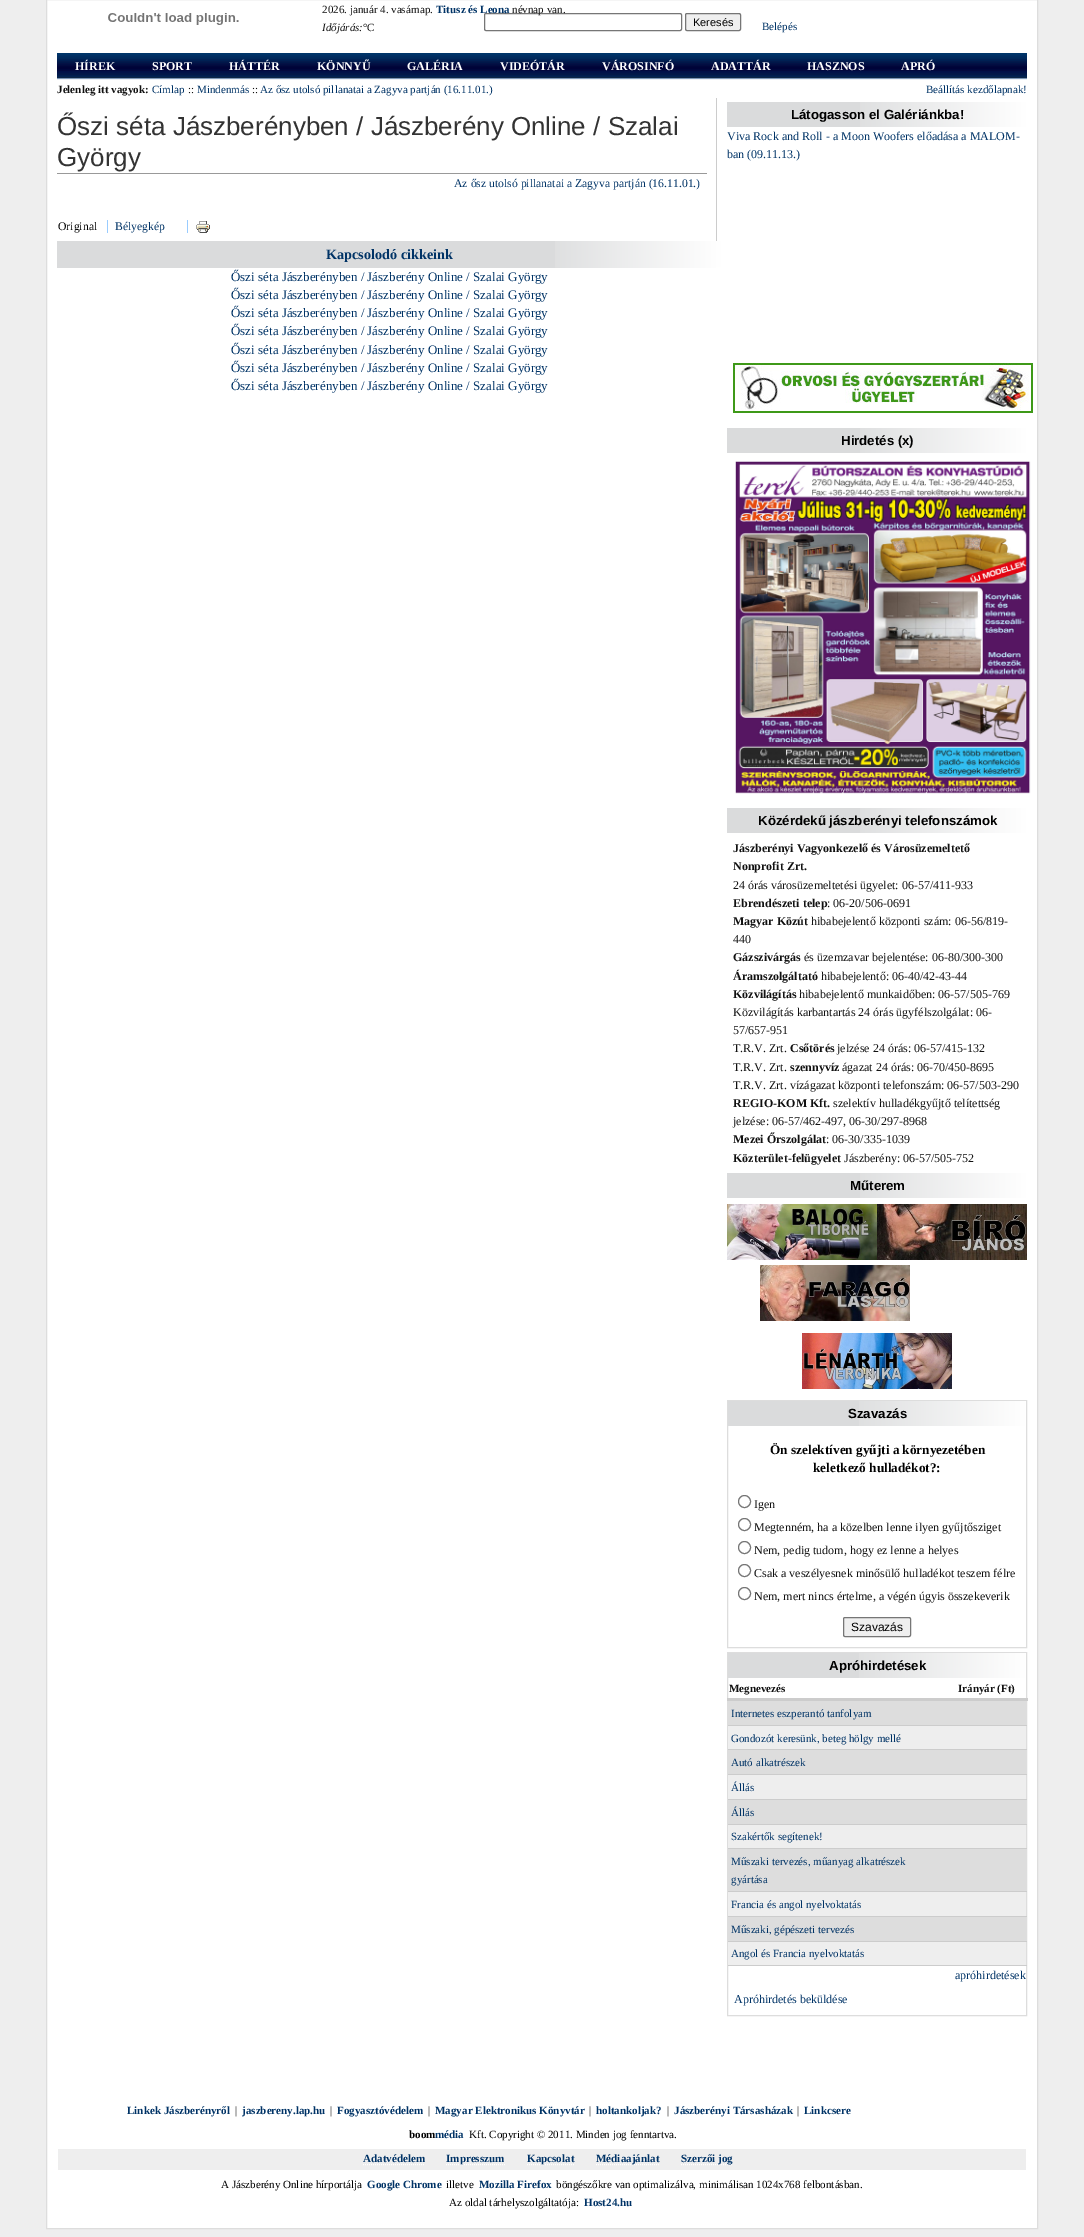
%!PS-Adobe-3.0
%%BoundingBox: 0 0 1084 2237
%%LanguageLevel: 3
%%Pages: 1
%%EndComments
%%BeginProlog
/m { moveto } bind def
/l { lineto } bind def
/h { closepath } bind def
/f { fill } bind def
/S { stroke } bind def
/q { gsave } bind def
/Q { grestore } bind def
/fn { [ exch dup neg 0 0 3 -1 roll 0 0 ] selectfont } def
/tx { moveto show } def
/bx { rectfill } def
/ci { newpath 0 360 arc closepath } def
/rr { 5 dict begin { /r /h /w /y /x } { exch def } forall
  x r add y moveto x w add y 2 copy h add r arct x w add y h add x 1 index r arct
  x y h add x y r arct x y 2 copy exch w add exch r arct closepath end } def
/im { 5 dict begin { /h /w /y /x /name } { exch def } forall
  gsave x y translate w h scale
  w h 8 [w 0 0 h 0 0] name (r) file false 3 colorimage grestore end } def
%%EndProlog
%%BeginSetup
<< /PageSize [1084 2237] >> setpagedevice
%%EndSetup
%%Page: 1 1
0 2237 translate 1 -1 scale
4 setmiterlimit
0.933 setgray
0 0 1084 2237 bx
1 setgray
46.5 -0.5 m 1037.5 -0.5 l 1037.5 2228.5 l 46.5 2228.5 l h q f Q
0.867 setgray
S
/LiberationSerif-Regular 11.05 fn
0.067 setgray
(2026. január 4. vasárnap.) 322 13 tx
0.463 setgray
484.5 13.5 197 17 1.5 rr S
/LiberationSerif-Bold 11.05 fn
0 0.2 0.4 setrgbcolor
(Titusz és Leona) 436 13 tx
/LiberationSerif-Regular 11.05 fn
0.067 setgray
(névnap van.) 512 13 tx
(image0.raw) 108 13 131 12 im
/LiberationSerif-Italic 11.05 fn
(Időjárás:) 322 31 tx
/LiberationSerif-Regular 11.05 fn
(°C) 363 31 tx
0.937 setgray
685.5 13.5 55 17 1.5 rr q f Q
0.463 setgray
S
/LiberationSans-Regular 11 fn
0 setgray
(Keresés) 693 26 tx
/LiberationSerif-Regular 11.05 fn
0 0.2 0.4 setrgbcolor
(Belépés) 762 30 tx
(image1.raw) 57 53 970 27 im
/LiberationSerif-Bold 12 fn
1 setgray
(HÍREK) 75 70 tx
(SPORT) 152 70 tx
(HÁTTÉR) 229 70 tx
(KÖNNYŰ) 317 70 tx
(GALÉRIA) 407 70 tx
(VIDEÓTÁR) 500 70 tx
(VÁROSINFÓ) 602 70 tx
(ADATTÁR) 711 70 tx
(HASZNOS) 807 70 tx
(APRÓ) 901 70 tx
/LiberationSerif-Bold 11.05 fn
0.067 setgray
(Jelenleg itt vagyok:) 57 93 tx
/LiberationSerif-Regular 11.05 fn
0 0.2 0.4 setrgbcolor
(Címlap) 152 93 tx
0.067 setgray
(::) 188 93 tx
0 0.2 0.4 setrgbcolor
(Mindenmás) 197 93 tx
0.067 setgray
(::) 252 93 tx
0 0.2 0.4 setrgbcolor
(Az ősz utolsó pillanatai a Zagyva partján \(16.11.01.\)) 260 93 tx
(Beállítás kezdőlapnak!) 926 93 tx
0.8 setgray
716 98 1 143 bx
0.6 setgray
57 173 650 1 bx
/LiberationSans-Regular 26 fn
0.2 setgray
(Őszi séta Jászberényben / Jászberény Online / Szalai) 57 135 tx
(György) 57 166 tx
/LiberationSerif-Regular 11.7 fn
0 0.2 0.4 setrgbcolor
(Az ősz utolsó pillanatai a Zagyva partján \(16.11.01.\)) 454 187 tx
0 setgray
(Original) 58 230 tx
0 0.2 0.4 setrgbcolor
(Bélyegkép) 115 230 tx
0.6 0.8 1 setrgbcolor
107 220 1 13 bx
187 220 1 13 bx
(image2.raw) 196 221 14 12 im
0.855 0.859 0.863 setrgbcolor
727 102 133 25 bx
(image3.raw) 860 102 167 25 im
/LiberationSans-Bold 13.25 fn
0 setgray
(Látogasson el Galériánkba!) 791 119 tx
/LiberationSerif-Regular 12 fn
0 0.2 0.4 setrgbcolor
(Viva Rock and Roll - a Moon Woofers előadása a MALOM-) 727 140 tx
(ban \(09.11.13.\)) 727 158 tx
(image4.raw) 733 363 300 50 im
0.855 0.859 0.863 setrgbcolor
727 428 133 25 bx
(image3.raw) 860 428 167 25 im
/LiberationSans-Bold 13.25 fn
0 setgray
(Hirdetés \(x\)) 841 445 tx
(image5.raw) 735 461 296 333 im
0.855 0.859 0.863 setrgbcolor
727 808 133 25 bx
(image3.raw) 860 808 167 25 im
0 setgray
(Közérdekű jászberényi telefonszámok) 758 825 tx
/LiberationSerif-Bold 12 fn
0.067 setgray
(Jászberényi Vagyonkezelő és Városüzemeltető) 733 852 tx
(Nonprofit Zrt.) 733 870 tx
/LiberationSerif-Regular 12 fn
(24 órás városüzemeltetési ügyelet: 06-57/411-933) 733 889 tx
/LiberationSerif-Bold 12 fn
(Ebrendészeti telep) 733 907 tx
/LiberationSerif-Regular 12 fn
(: 06-20/506-0691) 827 907 tx
/LiberationSerif-Bold 12 fn
(Magyar Közút) 733 925 tx
/LiberationSerif-Regular 12 fn
(hibabejelentő központi szám: 06-56/819-) 811 925 tx
(440) 733 943 tx
/LiberationSerif-Bold 12 fn
(Gázszivárgás) 733 961 tx
/LiberationSerif-Regular 12 fn
(és üzemzavar bejelentése: 06-80/300-300) 804 961 tx
/LiberationSerif-Bold 12 fn
(Áramszolgáltató) 733 980 tx
/LiberationSerif-Regular 12 fn
(hibabejelentő: 06-40/42-43-44) 821 980 tx
/LiberationSerif-Bold 12 fn
(Közvilágítás) 733 998 tx
/LiberationSerif-Regular 12 fn
(hibabejelentő munkaidőben: 06-57/505-769) 799 998 tx
(Közvilágítás karbantartás 24 órás ügyfélszolgálat: 06-) 733 1016 tx
(57/657-951) 733 1034 tx
(T.R.V. Zrt.) 733 1052 tx
/LiberationSerif-Bold 12 fn
(Csőtörés) 790 1052 tx
/LiberationSerif-Regular 12 fn
(jelzése 24 órás: 06-57/415-132) 837 1052 tx
(T.R.V. Zrt.) 733 1071 tx
/LiberationSerif-Bold 12 fn
(szennyvíz) 790 1071 tx
/LiberationSerif-Regular 12 fn
(ágazat 24 órás: 06-70/450-8695) 842 1071 tx
(T.R.V. Zrt. vízágazat központi telefonszám: 06-57/503-290) 733 1089 tx
/LiberationSerif-Bold 12 fn
(REGIO-KOM Kft.) 733 1107 tx
/LiberationSerif-Regular 12 fn
(szelektív hulladékgyűjtő telítettség) 833 1107 tx
(jelzése: 06-57/462-497, 06-30/297-8968) 733 1125 tx
/LiberationSerif-Bold 12 fn
(Mezei Őrszolgálat) 733 1143 tx
/LiberationSerif-Regular 12 fn
(: 06-30/335-1039) 826 1143 tx
/LiberationSerif-Bold 12 fn
(Közterület-felügyelet) 733 1162 tx
/LiberationSerif-Regular 12 fn
(Jászberény: 06-57/505-752) 844 1162 tx
0.855 0.859 0.863 setrgbcolor
727 1173 133 25 bx
(image3.raw) 860 1173 167 25 im
/LiberationSans-Bold 13.25 fn
0 setgray
(Műterem) 850 1190 tx
(image6.raw) 727 1204 150 56 im
(image7.raw) 877 1204 150 56 im
(image8.raw) 760 1265 150 56 im
(image9.raw) 802 1333 150 56 im
0.867 setgray
727.5 1400.5 299 247 rectstroke
0.855 0.859 0.863 setrgbcolor
728 1401 131 25 bx
(image3.raw) 859 1401 167 25 im
0 setgray
(Szavazás) 848 1418 tx
/LiberationSerif-Bold 13.25 fn
(Ön szelektíven gyűjti a környezetében) 770 1454 tx
(keletkező hulladékot?:) 813 1472 tx
0.463 setgray
744.5 1501.5 6 ci S
/LiberationSerif-Regular 12 fn
0.067 setgray
(Igen) 754 1508 tx
0.463 setgray
744.5 1524.5 6 ci S
0.067 setgray
(Megtenném, ha a közelben lenne ilyen gyűjtősziget) 754 1531 tx
0.463 setgray
744.5 1547.5 6 ci S
0.067 setgray
(Nem, pedig tudom, hogy ez lenne a helyes) 754 1554 tx
0.463 setgray
744.5 1570.5 6 ci S
0.067 setgray
(Csak a veszélyesnek minősülő hulladékot teszem félre) 754 1577 tx
0.463 setgray
744.5 1593.5 6 ci S
0.067 setgray
(Nem, mert nincs értelme, a végén úgyis összekeverik) 754 1600 tx
0.937 setgray
843.5 1617.5 67 19 1.5 rr q f Q
0.463 setgray
S
/LiberationSans-Regular 12 fn
0 setgray
(Szavazás) 851 1631 tx
0.867 setgray
727.5 1652.5 299 363 rectstroke
0.855 0.859 0.863 setrgbcolor
728 1653 131 25 bx
(image3.raw) 859 1653 167 25 im
/LiberationSans-Bold 13.25 fn
0 setgray
(Apróhirdetések) 829 1670 tx
/LiberationSerif-Bold 11 fn
0.067 setgray
(Megnevezés) 729 1692 tx
0.8 setgray
727 1698 301 3 bx
0.067 setgray
(Irányár \(Ft\)) 958 1692 tx
0.867 setgray
728 1701 298 24 bx
0.8 setgray
728 1725 299 1 bx
/LiberationSerif-Regular 11 fn
0 0.2 0.4 setrgbcolor
(Internetes eszperantó tanfolyam) 731 1717 tx
0.933 setgray
728 1726 298 23 bx
0.8 setgray
728 1749 299 1 bx
0 0.2 0.4 setrgbcolor
(Gondozót keresünk, beteg hölgy mellé) 731 1742 tx
0.867 setgray
728 1750 298 24 bx
0.8 setgray
728 1774 299 1 bx
0 0.2 0.4 setrgbcolor
(Autó alkatrészek) 731 1766 tx
0.933 setgray
728 1775 298 24 bx
0.8 setgray
728 1799 299 1 bx
0 0.2 0.4 setrgbcolor
(Állás) 731 1791 tx
0.867 setgray
728 1800 298 24 bx
0.8 setgray
728 1824 299 1 bx
0 0.2 0.4 setrgbcolor
(Állás) 731 1816 tx
0.933 setgray
728 1825 298 23 bx
0.8 setgray
728 1848 299 1 bx
0 0.2 0.4 setrgbcolor
(Szakértők segítenek!) 731 1840 tx
0.867 setgray
728 1849 298 42 bx
0.8 setgray
728 1891 299 1 bx
0 0.2 0.4 setrgbcolor
(Műszaki tervezés, műanyag alkatrészek) 731 1865 tx
(gyártása) 731 1883 tx
0.933 setgray
728 1892 298 24 bx
0.8 setgray
728 1916 299 1 bx
0 0.2 0.4 setrgbcolor
(Francia és angol nyelvoktatás) 731 1908 tx
0.867 setgray
728 1917 298 24 bx
0.8 setgray
728 1941 299 1 bx
0 0.2 0.4 setrgbcolor
(Műszaki, gépészeti tervezés) 731 1933 tx
0.933 setgray
728 1942 298 23 bx
0.8 setgray
728 1965 299 1 bx
0 0.2 0.4 setrgbcolor
(Angol és Francia nyelvoktatás) 731 1957 tx
/LiberationSerif-Regular 12 fn
(apróhirdetések) 955 1979 tx
(Apróhirdetés beküldése) 734 2003 tx
0.855 0.859 0.863 setrgbcolor
57 241 498 27 bx
(image10.raw) 555 241 167 27 im
/LiberationSerif-Bold 14.25 fn
0 0.2 0.4 setrgbcolor
(Kapcsolodó cikkeink) 326 259 tx
/LiberationSerif-Regular 13 fn
(Őszi séta Jászberényben / Jászberény Online / Szalai György) 231 281 tx
(Őszi séta Jászberényben / Jászberény Online / Szalai György) 231 299 tx
(Őszi séta Jászberényben / Jászberény Online / Szalai György) 231 317 tx
(Őszi séta Jászberényben / Jászberény Online / Szalai György) 231 335 tx
(Őszi séta Jászberényben / Jászberény Online / Szalai György) 231 354 tx
(Őszi séta Jászberényben / Jászberény Online / Szalai György) 231 372 tx
(Őszi séta Jászberényben / Jászberény Online / Szalai György) 231 390 tx
/LiberationSerif-Bold 11.05 fn
(Linkek Jászberényről) 127 2114 tx
/LiberationSerif-Regular 11.05 fn
0 setgray
(|) 235 2114 tx
/LiberationSerif-Bold 11.05 fn
0 0.2 0.4 setrgbcolor
(jaszbereny.lap.hu) 242 2114 tx
/LiberationSerif-Regular 11.05 fn
0 setgray
(|) 330 2114 tx
/LiberationSerif-Bold 11.05 fn
0 0.2 0.4 setrgbcolor
(Fogyasztóvédelem) 337 2114 tx
/LiberationSerif-Regular 11.05 fn
0 setgray
(|) 428 2114 tx
/LiberationSerif-Bold 11.05 fn
0 0.2 0.4 setrgbcolor
(Magyar Elektronikus Könyvtár) 435 2114 tx
/LiberationSerif-Regular 11.05 fn
0 setgray
(|) 589 2114 tx
/LiberationSerif-Bold 11.05 fn
0 0.2 0.4 setrgbcolor
(holtankoljak?) 596 2114 tx
/LiberationSerif-Regular 11.05 fn
0 setgray
(|) 667 2114 tx
/LiberationSerif-Bold 11.05 fn
0 0.2 0.4 setrgbcolor
(Jászberényi Társasházak) 674 2114 tx
/LiberationSerif-Regular 11.05 fn
0 setgray
(|) 797 2114 tx
/LiberationSerif-Bold 11.05 fn
0 0.2 0.4 setrgbcolor
(Linkcsere) 804 2114 tx
0 setgray
(boom) 409 2138 tx
0 0.2 0.4 setrgbcolor
(média) 435 2138 tx
/LiberationSerif-Regular 11.05 fn
0 setgray
(Kft. Copyright © 2011. Minden jog fenntartva.) 469 2138 tx
0.933 setgray
58 2149 968 21 bx
/LiberationSerif-Bold 11.05 fn
0 0.2 0.4 setrgbcolor
(Adatvédelem) 363 2162 tx
1 setgray
[1 1] 0 setdash
363 2164.5 m 425 2164.5 l S
446 2164.5 m 505 2164.5 l S
0 0.2 0.4 setrgbcolor
(Impresszum) 446 2162 tx
1 setgray
527 2164.5 m 574 2164.5 l S
0 0.2 0.4 setrgbcolor
(Kapcsolat) 527 2162 tx
1 setgray
596 2164.5 m 659 2164.5 l S
0 0.2 0.4 setrgbcolor
(Médiaajánlat) 596 2162 tx
1 setgray
681 2164.5 m 732 2164.5 l S
0 0.2 0.4 setrgbcolor
(Szerzői jog) 681 2162 tx
/LiberationSerif-Regular 11.05 fn
0 setgray
(A Jászberény Online hírportálja) 221 2188 tx
/LiberationSerif-Bold 11.05 fn
0 0.2 0.4 setrgbcolor
(Google Chrome) 367 2188 tx
/LiberationSerif-Regular 11.05 fn
0 setgray
(illetve) 446 2188 tx
/LiberationSerif-Bold 11.05 fn
0 0.2 0.4 setrgbcolor
(Mozilla Firefox) 479 2188 tx
/LiberationSerif-Regular 11.05 fn
0 setgray
(böngészőkre van optimalizálva, minimálisan 1024x768 felbontásban.) 556 2188 tx
(Az oldal tárhelyszolgáltatója:) 449 2206 tx
/LiberationSerif-Bold 11.05 fn
0 0.2 0.4 setrgbcolor
(Host24.hu) 584 2206 tx
showpage
%%EOF
